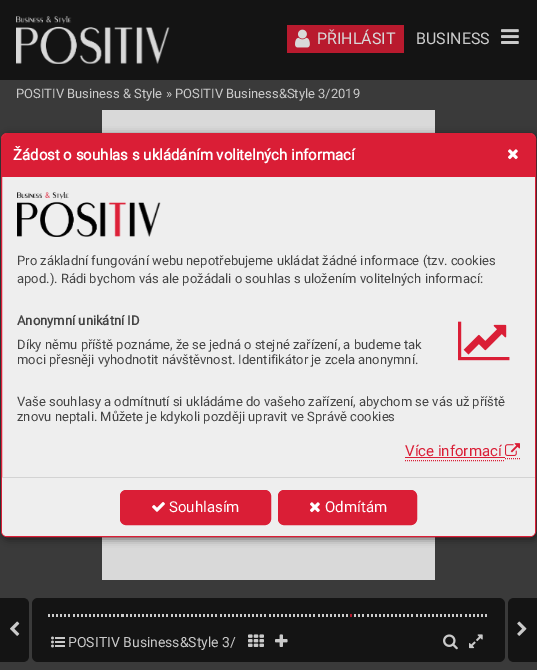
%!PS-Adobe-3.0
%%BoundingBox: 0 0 537 670
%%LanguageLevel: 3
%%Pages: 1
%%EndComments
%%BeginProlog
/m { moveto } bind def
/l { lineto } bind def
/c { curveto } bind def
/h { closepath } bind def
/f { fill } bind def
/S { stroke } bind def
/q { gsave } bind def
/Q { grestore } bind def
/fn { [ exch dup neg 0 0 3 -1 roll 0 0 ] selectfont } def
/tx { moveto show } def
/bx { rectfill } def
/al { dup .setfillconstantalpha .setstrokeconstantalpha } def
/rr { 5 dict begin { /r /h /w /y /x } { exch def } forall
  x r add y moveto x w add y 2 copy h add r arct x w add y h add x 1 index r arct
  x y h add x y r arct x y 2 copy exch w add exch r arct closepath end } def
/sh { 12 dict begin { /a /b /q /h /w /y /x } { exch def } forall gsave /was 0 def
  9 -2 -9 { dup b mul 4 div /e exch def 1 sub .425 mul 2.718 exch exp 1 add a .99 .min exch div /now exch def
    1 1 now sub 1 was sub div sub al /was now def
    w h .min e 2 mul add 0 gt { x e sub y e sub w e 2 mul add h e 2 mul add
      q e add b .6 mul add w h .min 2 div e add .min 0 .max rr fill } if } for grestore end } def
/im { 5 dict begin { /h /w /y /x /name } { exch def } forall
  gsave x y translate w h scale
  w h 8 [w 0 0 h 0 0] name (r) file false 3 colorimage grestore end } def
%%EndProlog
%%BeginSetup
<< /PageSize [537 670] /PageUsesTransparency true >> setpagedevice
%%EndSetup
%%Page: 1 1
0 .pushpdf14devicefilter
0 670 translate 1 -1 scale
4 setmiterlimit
0.227 setgray
0 0 537 670 bx
0.078 setgray
0 0 537 80 bx
(image0.raw) 16 16 154 48 im
0.725 0.102 0.18 setrgbcolor
287 25 117 28 bx
(image1.raw) 295 29 15 19 im
/Roboto-Regular 16 fn
0.851 setgray
(PŘIHLÁSIT) 317 44 tx
0.792 setgray
(BUSINESS) 416 44 tx
(image2.raw) 501 29 18 15 im
/Roboto-Regular 13 fn
(POSITIV Business & Style » POSITIV Business&Style 3/2019) 16 98 tx
0.078 setgray
0 598 m 23 598 l 26.5 598 29 600.5 29 604 c 29 656 l 29 659.5 26.5 662 23 662 c 0 662 l h f
(image3.raw) 10 621 10 15 im
32 598 473 64 6 rr f
0.792 setgray
48 614 2 3 bx
52 614 2 3 bx
56 614 2 3 bx
60 614 2 3 bx
64 614 2 3 bx
68 614 2 3 bx
73 614 2 3 bx
77 614 2 3 bx
81 614 2 3 bx
85 614 2 3 bx
89 614 2 3 bx
93 614 2 3 bx
97 614 2 3 bx
101 614 2 3 bx
105 614 2 3 bx
109 614 2 3 bx
113 614 2 3 bx
117 614 2 3 bx
121 614 3 3 bx
126 614 2 3 bx
130 614 2 3 bx
134 614 2 3 bx
138 614 2 3 bx
142 614 2 3 bx
146 614 2 3 bx
150 614 2 3 bx
154 614 2 3 bx
158 614 2 3 bx
162 614 2 3 bx
166 614 2 3 bx
171 614 2 3 bx
175 614 2 3 bx
179 614 2 3 bx
183 614 2 3 bx
187 614 2 3 bx
191 614 2 3 bx
195 614 2 3 bx
199 614 2 3 bx
203 614 2 3 bx
207 614 2 3 bx
211 614 2 3 bx
215 614 2 3 bx
220 614 2 3 bx
224 614 2 3 bx
228 614 2 3 bx
232 614 2 3 bx
236 614 2 3 bx
240 614 2 3 bx
244 614 2 3 bx
248 614 2 3 bx
252 614 2 3 bx
256 614 2 3 bx
260 614 2 3 bx
264 614 2 3 bx
269 614 2 3 bx
273 614 2 3 bx
277 614 2 3 bx
281 614 2 3 bx
285 614 2 3 bx
289 614 2 3 bx
293 614 2 3 bx
297 614 2 3 bx
301 614 2 3 bx
305 614 2 3 bx
309 614 2 3 bx
313 614 2 3 bx
318 614 2 3 bx
322 614 2 3 bx
326 614 2 3 bx
330 614 2 3 bx
334 614 2 3 bx
338 614 2 3 bx
342 614 2 3 bx
346 614 2 3 bx
354 614 2 3 bx
358 614 2 3 bx
362 614 2 3 bx
367 614 2 3 bx
371 614 2 3 bx
375 614 2 3 bx
379 614 2 3 bx
383 614 2 3 bx
387 614 2 3 bx
391 614 2 3 bx
395 614 2 3 bx
399 614 2 3 bx
403 614 2 3 bx
407 614 2 3 bx
411 614 2 3 bx
416 614 2 3 bx
420 614 2 3 bx
424 614 2 3 bx
428 614 2 3 bx
432 614 2 3 bx
436 614 2 3 bx
440 614 2 3 bx
444 614 2 3 bx
448 614 2 3 bx
452 614 2 3 bx
456 614 2 3 bx
460 614 2 3 bx
465 614 2 3 bx
469 614 2 3 bx
473 614 2 3 bx
477 614 2 3 bx
481 614 2 3 bx
485 614 2 3 bx
0.725 0.102 0.18 setrgbcolor
350 614 2 3 bx
(image4.raw) 51 636 14 12 im
/Roboto-Regular 14 fn
0.792 setgray
(POSITIV Business&Style 3/) 68 647 tx
(image5.raw) 248 634 16 13 im
(image6.raw) 275 634 13 13 im
(image7.raw) 443 634 15 16 im
(image8.raw) 469 634 14 15 im
0.078 setgray
514 598 m 537 598 l 537 662 l 514 662 l 510.5 662 508 659.5 508 656 c 508 604 l 508 600.5 510.5 598 514 598 c h f
(image9.raw) 517 621 10 15 im
0.851 setgray
102 110 333 470 bx
0 setgray
3 135 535 404 6 4 0.53 sh
0.933 setgray
1.5 133.5 534 403 5.5 rr q f Q
0.855 0.118 0.212 setrgbcolor
S
7 134 m 530 134 l 533 134 535 136 535 139 c 535 177 l 2 177 l 2 139 l 2 136 4 134 7 134 c h f
/Roboto-Bold 15 fn
1 setgray
(Žádost o souhlas s ukládáním volitelných informací) 13 160 tx
(image10.raw) 508 149 10 11 im
(image11.raw) 17 192 144 45 im
/Roboto-Regular 13 fn
0.267 setgray
(Pro základní fungování webu nepotřebujeme ukládat žádné informace \(tzv. cookies) 17 265 tx
(apod.\). Rádi bychom vás ale požádali o souhlas s uložením volitelných informací:) 17 283 tx
/Roboto-Bold 13 fn
(Anonymní unikátní ID) 17 325 tx
(image12.raw) 458 321 52 40 im
/Roboto-Regular 13 fn
(Díky němu příště poznáme, že se jedná o stejné zařízení, a budeme tak) 17 349 tx
(moci přesněji vyhodnotit návštěvnost. Identifikátor je zcela anonymní.) 17 364 tx
(Vaše souhlasy a odmítnutí si ukládáme do vašeho zařízení, abychom se vás už příště) 17 406 tx
(znovu neptali. Můžete je kdykoli později upravit ve Správě cookies) 17 421 tx
0.855 0.118 0.212 setrgbcolor
[1 1] 0 setdash
405 460.5 m 505 460.5 l S
505 458.5 m 520 458.5 l S
/Roboto-Regular 15 fn
(Více informací) 405 456 tx
405 457 100 1 bx
(image13.raw) 505 443 15 13 im
0.933 setgray
2 477 m 535 477 l 535 531 l 535 534 533 536 530 536 c 7 536 l 4 536 2 534 2 531 c h f
0.827 setgray
2 477 533 1 bx
0.855 0.118 0.212 setrgbcolor
120.5 490.5 150 34 5.5 rr q f Q
[] 0 setdash
S
(image14.raw) 152 502 13 10 im
1 setgray
(Souhlasím) 169 512 tx
0.855 0.118 0.212 setrgbcolor
278.5 490.5 138 34 5.5 rr q f Q
S
(image10.raw) 310 502 10 11 im
1 setgray
(Odmítám) 325 512 tx
.poppdf14devicefilter showpage
%%EOF
